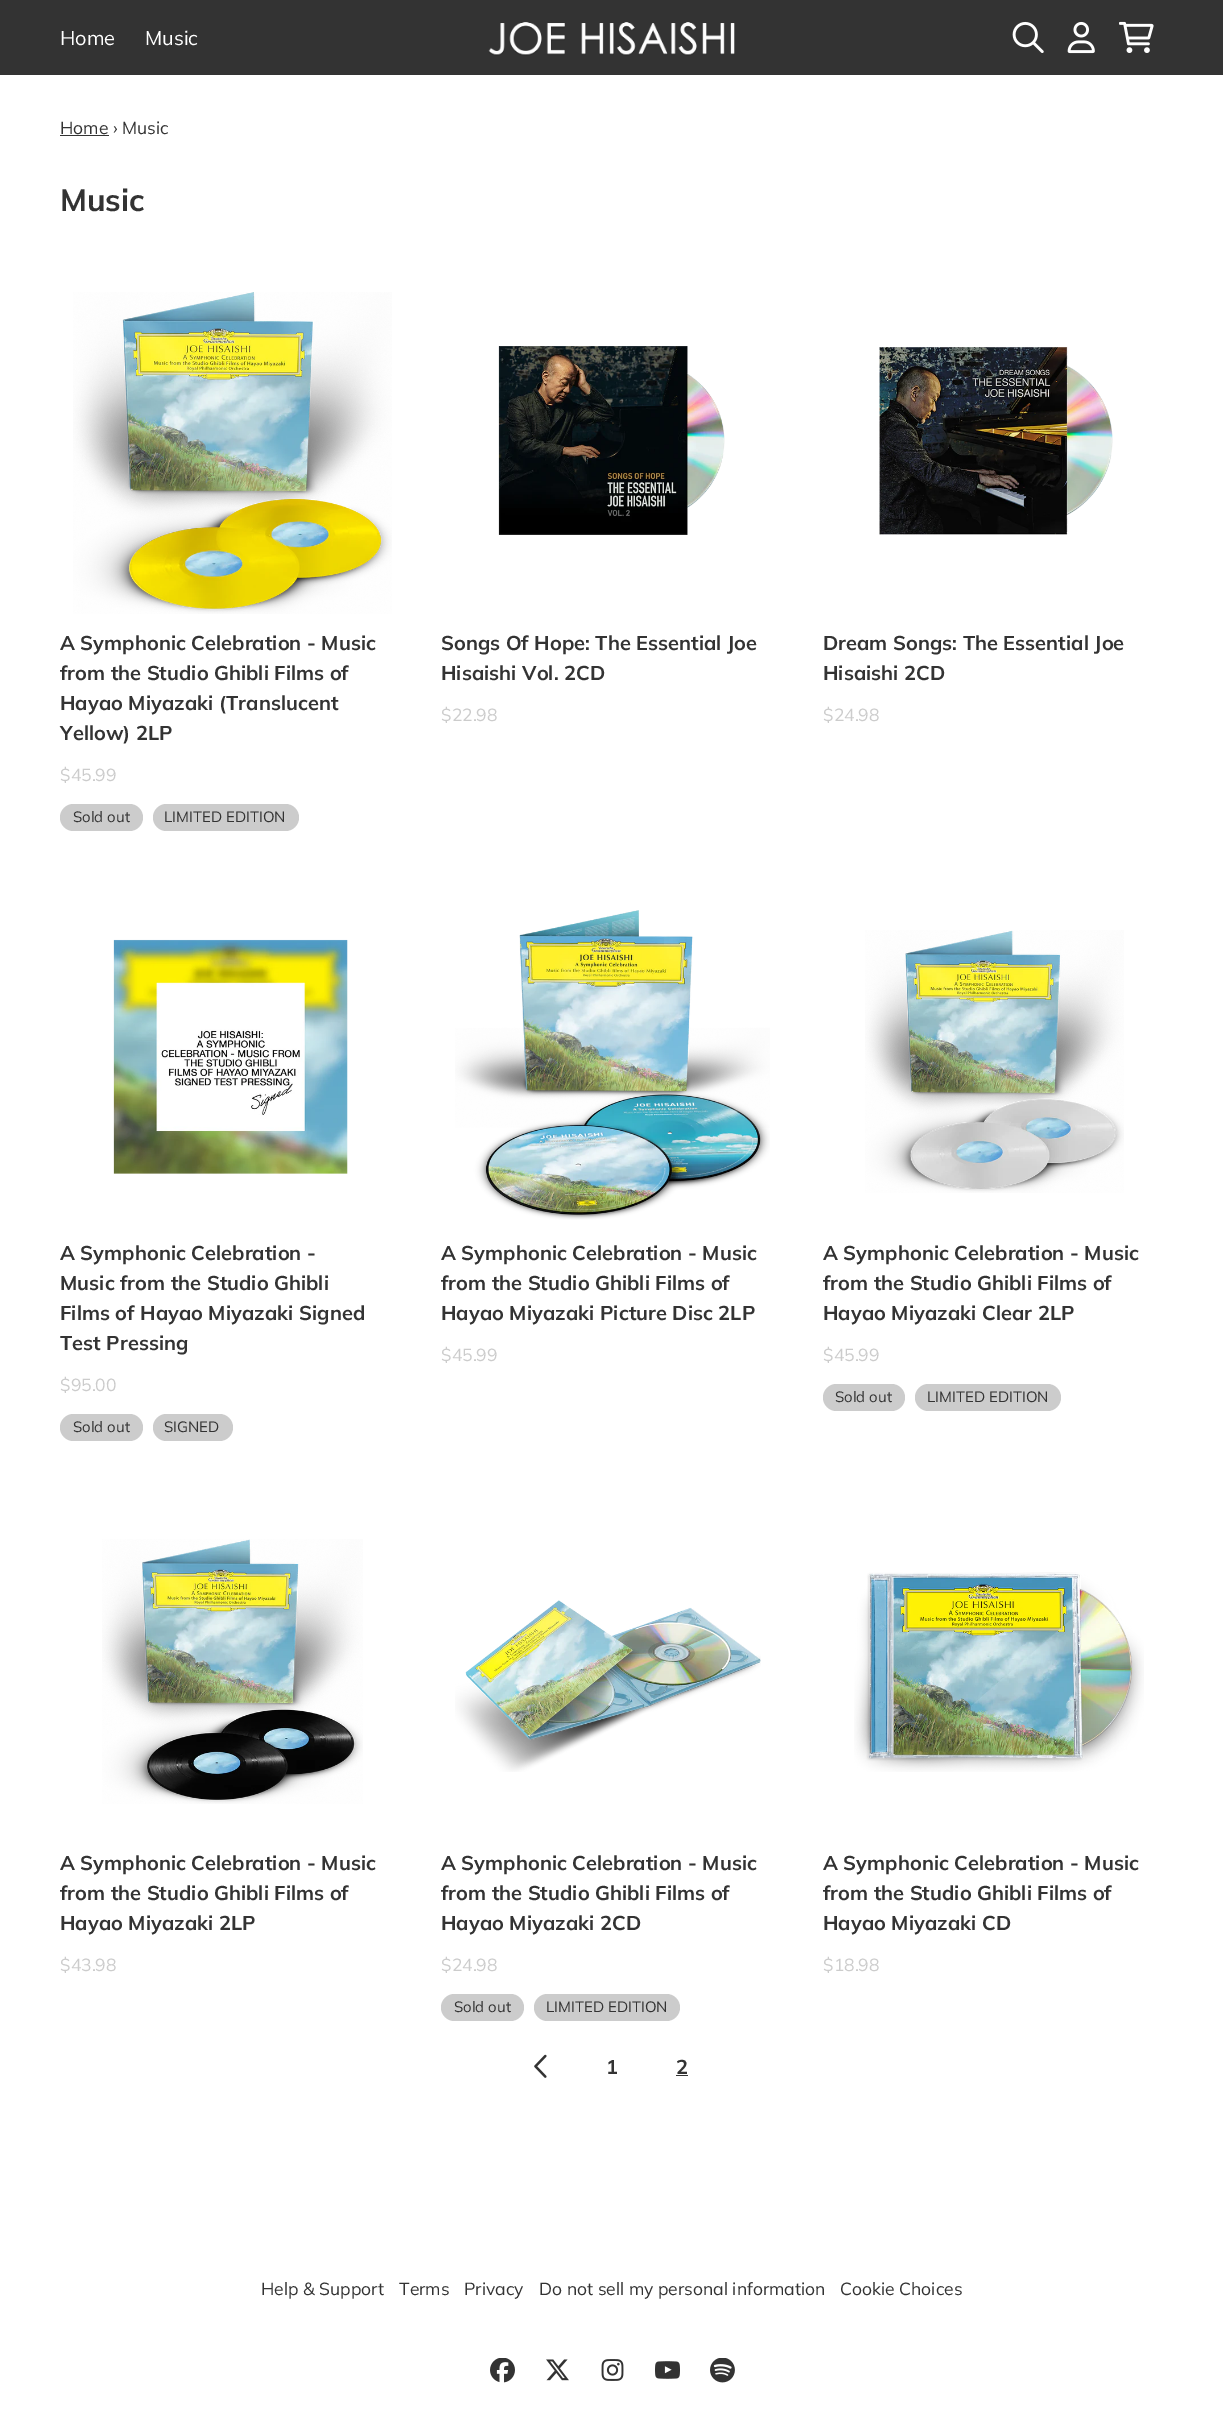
%!PS-Adobe-3.0
%%BoundingBox: 0 0 1223 2422
%%LanguageLevel: 3
%%Pages: 1
%%EndComments
%%BeginProlog
/f { fill } bind def
/fn { [ exch dup neg 0 0 3 -1 roll 0 0 ] selectfont } def
/tx { moveto show } def
/bx { rectfill } def
/rr { 5 dict begin { /r /h /w /y /x } { exch def } forall
  x r add y moveto x w add y 2 copy h add r arct x w add y h add x 1 index r arct
  x y h add x y r arct x y 2 copy exch w add exch r arct closepath end } def
/im { 5 dict begin { /h /w /y /x /name } { exch def } forall
  gsave x y translate w h scale
  w h 8 [w 0 0 h 0 0] name (r) file false 3 colorimage grestore end } def
%%EndProlog
%%BeginSetup
<< /PageSize [1223 2422] >> setpagedevice
%%EndSetup
%%Page: 1 1
0 2422 translate 1 -1 scale
4 setmiterlimit
1 setgray
0 0 1223 2422 bx
0.2 setgray
0 0 1223 75 bx
/Mulish-Regular 20 fn
1 setgray
(Home) 60 45 tx
(Music) 145 45 tx
(image0.raw) 488 22 247 34 im
(image1.raw) 1012 21 32 32 im
(image2.raw) 1067 21 28 33 im
(image3.raw) 1119 21 35 32 im
/Mulish-Regular 17.5 fn
0.2 setgray
(Home › Music) 60 134 tx
60 135 49 1 bx
/Mulish-Bold 31 fn
(Music) 60 211 tx
(image4.raw) 73 292 319 322 im
/Mulish-Bold 20 fn
(A Symphonic Celebration - Music) 60 650 tx
(from the Studio Ghibli Films of) 60 680 tx
(Hayao Miyazaki \(Translucent) 60 710 tx
(Yellow\) 2LP) 60 740 tx
/Mulish-Regular 17.5 fn
0.8 setgray
($45.99) 60 781 tx
60 804 83 27 13.5 rr f
/Mulish-Regular 15 fn
0.2 setgray
(Sold out) 73 822 tx
0.8 setgray
153 804 146 27 13.5 rr f
0.2 setgray
(LIMITED EDITION) 164 822 tx
(image5.raw) 498 346 227 189 im
/Mulish-Bold 20 fn
(Songs Of Hope: The Essential Joe) 441 650 tx
(Hisaishi Vol. 2CD) 441 680 tx
/Mulish-Regular 17.5 fn
0.8 setgray
($22.98) 441 721 tx
(image6.raw) 879 347 234 188 im
/Mulish-Bold 20 fn
0.2 setgray
(Dream Songs: The Essential Joe) 823 650 tx
(Hisaishi 2CD) 823 680 tx
/Mulish-Regular 17.5 fn
0.8 setgray
($24.98) 823 721 tx
(image7.raw) 113 939 235 235 im
/Mulish-Bold 20 fn
0.2 setgray
(A Symphonic Celebration -) 60 1260 tx
(Music from the Studio Ghibli) 60 1290 tx
(Films of Hayao Miyazaki Signed) 60 1320 tx
(Test Pressing) 60 1350 tx
/Mulish-Regular 17.5 fn
0.8 setgray
($95.00) 60 1391 tx
60 1414 83 27 13.5 rr f
/Mulish-Regular 15 fn
0.2 setgray
(Sold out) 73 1432 tx
0.8 setgray
153 1414 80 27 13.5 rr f
0.2 setgray
(SIGNED) 164 1432 tx
(image8.raw) 455 910 315 310 im
/Mulish-Bold 20 fn
(A Symphonic Celebration - Music) 441 1260 tx
(from the Studio Ghibli Films of) 441 1290 tx
(Hayao Miyazaki Picture Disc 2LP) 441 1320 tx
/Mulish-Regular 17.5 fn
0.8 setgray
($45.99) 441 1361 tx
(image9.raw) 865 930 259 263 im
/Mulish-Bold 20 fn
0.2 setgray
(A Symphonic Celebration - Music) 823 1260 tx
(from the Studio Ghibli Films of) 823 1290 tx
(Hayao Miyazaki Clear 2LP) 823 1320 tx
/Mulish-Regular 17.5 fn
0.8 setgray
($45.99) 823 1361 tx
823 1384 82 27 13.5 rr f
/Mulish-Regular 15 fn
0.2 setgray
(Sold out) 835 1402 tx
0.8 setgray
915 1384 146 27 13.5 rr f
0.2 setgray
(LIMITED EDITION) 927 1402 tx
(image10.raw) 102 1539 261 265 im
/Mulish-Bold 20 fn
(A Symphonic Celebration - Music) 60 1870 tx
(from the Studio Ghibli Films of) 60 1900 tx
(Hayao Miyazaki 2LP) 60 1930 tx
/Mulish-Regular 17.5 fn
0.8 setgray
($43.98) 60 1971 tx
(image11.raw) 455 1600 306 172 im
/Mulish-Bold 20 fn
0.2 setgray
(A Symphonic Celebration - Music) 441 1870 tx
(from the Studio Ghibli Films of) 441 1900 tx
(Hayao Miyazaki 2CD) 441 1930 tx
/Mulish-Regular 17.5 fn
0.8 setgray
($24.98) 441 1971 tx
441 1994 83 27 13.5 rr f
/Mulish-Regular 15 fn
0.2 setgray
(Sold out) 454 2012 tx
0.8 setgray
534 1994 146 27 13.5 rr f
0.2 setgray
(LIMITED EDITION) 546 2012 tx
(image12.raw) 854 1572 290 200 im
/Mulish-Bold 20 fn
(A Symphonic Celebration - Music) 823 1870 tx
(from the Studio Ghibli Films of) 823 1900 tx
(Hayao Miyazaki CD) 823 1930 tx
/Mulish-Regular 17.5 fn
0.8 setgray
($18.98) 823 1971 tx
(image13.raw) 534 2054 13 24 im
/Mulish-Bold 20 fn
0.2 setgray
(1) 606 2074 tx
(2) 676 2074 tx
676 2075 12 1 bx
/Mulish-Regular 17.5 fn
(Help & Support) 261 2295 tx
(Terms) 399 2295 tx
(Privacy) 464 2295 tx
(Do not sell my personal information) 539 2295 tx
(Cookie Choices) 840 2295 tx
(image14.raw) 490 2358 25 25 im
(image15.raw) 546 2359 23 22 im
(image16.raw) 601 2359 23 22 im
(image17.raw) 655 2361 25 18 im
(image18.raw) 710 2358 25 25 im
showpage
%%EOF
